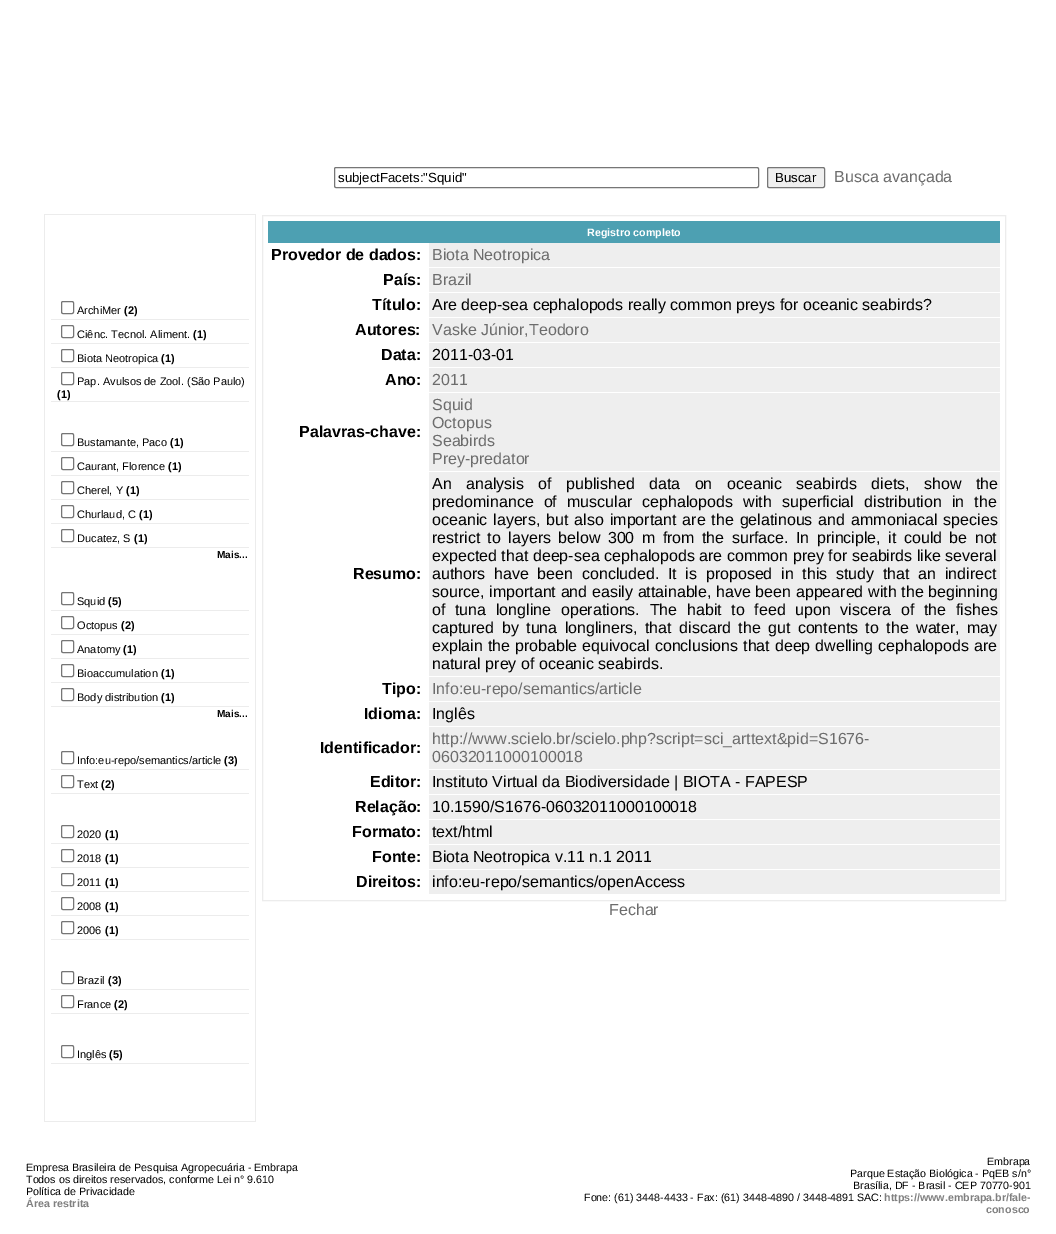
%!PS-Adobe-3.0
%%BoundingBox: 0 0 1056 1234
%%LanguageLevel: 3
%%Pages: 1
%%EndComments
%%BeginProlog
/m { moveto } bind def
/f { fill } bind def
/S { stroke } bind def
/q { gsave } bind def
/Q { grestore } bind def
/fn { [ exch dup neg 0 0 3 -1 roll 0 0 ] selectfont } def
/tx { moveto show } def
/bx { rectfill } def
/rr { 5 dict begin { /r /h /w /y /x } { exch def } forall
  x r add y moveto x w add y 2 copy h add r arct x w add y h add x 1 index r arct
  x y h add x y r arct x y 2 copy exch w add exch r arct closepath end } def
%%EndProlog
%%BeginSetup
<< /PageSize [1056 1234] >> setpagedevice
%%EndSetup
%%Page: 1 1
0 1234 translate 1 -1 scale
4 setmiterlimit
1 setgray
0 0 1056 1234 bx
0.463 setgray
334.5 167.5 424 20 1.5 rr S
/LiberationSans-Regular 13.25 fn
0 setgray
(subjectFacets:"Squid") 338 182 tx
0.937 setgray
767.5 167.5 57 20 1.5 rr q f Q
0.463 setgray
S
0 setgray
(Buscar) 775 182 tx
/LiberationSans-Regular 16 fn
0.424 setgray
(Busca avançada) 834 182 tx
0.925 setgray
44 214 212 908 bx
1 setgray
45 215 210 906 bx
0.925 setgray
51 319 198 1 bx
0.463 setgray
61.5 301.5 12 12 1.5 rr S
/LiberationSans-Regular 11 fn
0 setgray
(ArchiMer) 77 314 tx
/LiberationSans-Bold 11 fn
(\(2\)) 124 314 tx
0.925 setgray
51 343 198 1 bx
0.463 setgray
61.5 325.5 12 12 1.5 rr S
/LiberationSans-Regular 11 fn
0 setgray
(Ciênc. Tecnol. Aliment.) 77 338 tx
/LiberationSans-Bold 11 fn
(\(1\)) 193 338 tx
0.925 setgray
51 367 198 1 bx
0.463 setgray
61.5 349.5 12 12 1.5 rr S
/LiberationSans-Regular 11 fn
0 setgray
(Biota Neotropica) 77 362 tx
/LiberationSans-Bold 11 fn
(\(1\)) 161 362 tx
0.925 setgray
51 401 198 1 bx
0.463 setgray
61.5 372.5 12 12 1.5 rr S
/LiberationSans-Regular 11 fn
0 setgray
(Pap. Avulsos de Zool. \(São Paulo\)) 77 385 tx
/LiberationSans-Bold 11 fn
(\(1\)) 57 398 tx
0.925 setgray
51 451 198 1 bx
0.463 setgray
61.5 433.5 12 12 1.5 rr S
/LiberationSans-Regular 11 fn
0 setgray
(Bustamante, Paco) 77 446 tx
/LiberationSans-Bold 11 fn
(\(1\)) 170 446 tx
0.925 setgray
51 475 198 1 bx
0.463 setgray
61.5 457.5 12 12 1.5 rr S
/LiberationSans-Regular 11 fn
0 setgray
(Caurant, Florence) 77 470 tx
/LiberationSans-Bold 11 fn
(\(1\)) 168 470 tx
0.925 setgray
51 499 198 1 bx
0.463 setgray
61.5 481.5 12 12 1.5 rr S
/LiberationSans-Regular 11 fn
0 setgray
(Cherel, Y) 77 494 tx
/LiberationSans-Bold 11 fn
(\(1\)) 126 494 tx
0.925 setgray
51 523 198 1 bx
0.463 setgray
61.5 505.5 12 12 1.5 rr S
/LiberationSans-Regular 11 fn
0 setgray
(Churlaud, C) 77 518 tx
/LiberationSans-Bold 11 fn
(\(1\)) 139 518 tx
0.925 setgray
51 547 198 1 bx
0.463 setgray
61.5 529.5 12 12 1.5 rr S
/LiberationSans-Regular 11 fn
0 setgray
(Ducatez, S) 77 542 tx
/LiberationSans-Bold 11 fn
(\(1\)) 134 542 tx
/LiberationSans-Bold 10 fn
(Mais...) 217 558 tx
0.925 setgray
51 610 198 1 bx
0.463 setgray
61.5 592.5 12 12 1.5 rr S
/LiberationSans-Regular 11 fn
0 setgray
(Squid) 77 605 tx
/LiberationSans-Bold 11 fn
(\(5\)) 108 605 tx
0.925 setgray
51 634 198 1 bx
0.463 setgray
61.5 616.5 12 12 1.5 rr S
/LiberationSans-Regular 11 fn
0 setgray
(Octopus) 77 629 tx
/LiberationSans-Bold 11 fn
(\(2\)) 121 629 tx
0.925 setgray
51 658 198 1 bx
0.463 setgray
61.5 640.5 12 12 1.5 rr S
/LiberationSans-Regular 11 fn
0 setgray
(Anatomy) 77 653 tx
/LiberationSans-Bold 11 fn
(\(1\)) 123 653 tx
0.925 setgray
51 682 198 1 bx
0.463 setgray
61.5 664.5 12 12 1.5 rr S
/LiberationSans-Regular 11 fn
0 setgray
(Bioaccumulation) 77 677 tx
/LiberationSans-Bold 11 fn
(\(1\)) 161 677 tx
0.925 setgray
51 706 198 1 bx
0.463 setgray
61.5 688.5 12 12 1.5 rr S
/LiberationSans-Regular 11 fn
0 setgray
(Body distribution) 77 701 tx
/LiberationSans-Bold 11 fn
(\(1\)) 161 701 tx
/LiberationSans-Bold 10 fn
(Mais...) 217 717 tx
0.925 setgray
51 769 198 1 bx
0.463 setgray
61.5 751.5 12 12 1.5 rr S
/LiberationSans-Regular 11 fn
0 setgray
(Info:eu-repo/semantics/article) 77 764 tx
/LiberationSans-Bold 11 fn
(\(3\)) 224 764 tx
0.925 setgray
51 793 198 1 bx
0.463 setgray
61.5 775.5 12 12 1.5 rr S
/LiberationSans-Regular 11 fn
0 setgray
(Text) 77 788 tx
/LiberationSans-Bold 11 fn
(\(2\)) 101 788 tx
0.925 setgray
51 843 198 1 bx
0.463 setgray
61.5 825.5 12 12 1.5 rr S
/LiberationSans-Regular 11 fn
0 setgray
(2020) 77 838 tx
/LiberationSans-Bold 11 fn
(\(1\)) 105 838 tx
0.925 setgray
51 867 198 1 bx
0.463 setgray
61.5 849.5 12 12 1.5 rr S
/LiberationSans-Regular 11 fn
0 setgray
(2018) 77 862 tx
/LiberationSans-Bold 11 fn
(\(1\)) 105 862 tx
0.925 setgray
51 891 198 1 bx
0.463 setgray
61.5 873.5 12 12 1.5 rr S
/LiberationSans-Regular 11 fn
0 setgray
(2011) 77 886 tx
/LiberationSans-Bold 11 fn
(\(1\)) 105 886 tx
0.925 setgray
51 915 198 1 bx
0.463 setgray
61.5 897.5 12 12 1.5 rr S
/LiberationSans-Regular 11 fn
0 setgray
(2008) 77 910 tx
/LiberationSans-Bold 11 fn
(\(1\)) 105 910 tx
0.925 setgray
51 939 198 1 bx
0.463 setgray
61.5 921.5 12 12 1.5 rr S
/LiberationSans-Regular 11 fn
0 setgray
(2006) 77 934 tx
/LiberationSans-Bold 11 fn
(\(1\)) 105 934 tx
0.925 setgray
51 989 198 1 bx
0.463 setgray
61.5 971.5 12 12 1.5 rr S
/LiberationSans-Regular 11 fn
0 setgray
(Brazil) 77 984 tx
/LiberationSans-Bold 11 fn
(\(3\)) 108 984 tx
0.925 setgray
51 1013 198 1 bx
0.463 setgray
61.5 995.5 12 12 1.5 rr S
/LiberationSans-Regular 11 fn
0 setgray
(France) 77 1008 tx
/LiberationSans-Bold 11 fn
(\(2\)) 114 1008 tx
0.925 setgray
51 1063 198 1 bx
0.463 setgray
61.5 1045.5 12 12 1.5 rr S
/LiberationSans-Regular 11 fn
0 setgray
(Inglês) 77 1058 tx
/LiberationSans-Bold 11 fn
(\(5\)) 109 1058 tx
0.925 setgray
262.5 215.5 743 685 rectstroke
0.302 0.627 0.698 setrgbcolor
268 221 732 22 bx
/LiberationSans-Bold 10.7 fn
1 setgray
(Registro completo) 587 236 tx
/LiberationSans-Bold 16 fn
0 setgray
(Provedor de dados:) 271 260 tx
0.933 setgray
429 243 571 24 bx
/LiberationSans-Regular 16 fn
0.424 setgray
(Biota Neotropica) 432 260 tx
/LiberationSans-Bold 16 fn
0 setgray
(País:) 383 285 tx
0.933 setgray
429 268 571 24 bx
/LiberationSans-Regular 16 fn
0.424 setgray
(Brazil) 432 285 tx
/LiberationSans-Bold 16 fn
0 setgray
(Título:) 372 310 tx
0.933 setgray
429 293 571 24 bx
/LiberationSans-Regular 16 fn
0 setgray
(Are deep-sea cephalopods really common preys for oceanic seabirds?) 432 310 tx
/LiberationSans-Bold 16 fn
(Autores:) 355 335 tx
0.933 setgray
429 318 571 24 bx
/LiberationSans-Regular 16 fn
0.424 setgray
(Vaske Júnior,Teodoro) 432 335 tx
/LiberationSans-Bold 16 fn
0 setgray
(Data:) 381 360 tx
0.933 setgray
429 343 571 24 bx
/LiberationSans-Regular 16 fn
0 setgray
(2011-03-01) 432 360 tx
/LiberationSans-Bold 16 fn
(Ano:) 385 385 tx
0.933 setgray
429 368 571 24 bx
/LiberationSans-Regular 16 fn
0.424 setgray
(2011) 432 385 tx
/LiberationSans-Bold 16 fn
0 setgray
(Palavras-chave:) 299 437 tx
0.933 setgray
429 393 571 78 bx
/LiberationSans-Regular 16 fn
0.424 setgray
(Squid) 432 410 tx
(Octopus) 432 428 tx
(Seabirds) 432 446 tx
(Prey-predator) 432 464 tx
/LiberationSans-Bold 16 fn
0 setgray
(Resumo:) 353 579 tx
0.933 setgray
429 472 571 204 bx
/LiberationSans-Regular 16 fn
0 setgray
432 489 m 10 0 32 (An analysis of published data on oceanic seabirds diets, show the) widthshow
432 507 m 5.75 0 32 (predominance of muscular cephalopods with superficial distribution in the) widthshow
432 525 m 1.5 0 32 (oceanic layers, but also important are the gelatinous and ammoniacal species) widthshow
432 543 m 3 0 32 (restrict to layers below 300 m from the surface. In principle, it could be not) widthshow
432 561 m 0.1 0 32 (expected that deep-sea cephalopods are common prey for seabirds like several) widthshow
432 579 m 4.25 0 32 (authors have been concluded. It is proposed in this study that an indirect) widthshow
432 597 m 0.25 0 32 (source, important and easily attainable, have been appeared with the beginning) widthshow
432 615 m 5.25 0 32 (of tuna longline operations. The habit to feed upon viscera of the fishes) widthshow
432 633 m 3 0 32 (captured by tuna longliners, that discard the gut contents to the water, may) widthshow
432 651 m 0.5 0 32 (explain the probable equivocal conclusions that deep dwelling cephalopods are) widthshow
(natural prey of oceanic seabirds.) 432 669 tx
/LiberationSans-Bold 16 fn
(Tipo:) 382 694 tx
0.933 setgray
429 677 571 24 bx
/LiberationSans-Regular 16 fn
0.424 setgray
(Info:eu-repo/semantics/article) 432 694 tx
/LiberationSans-Bold 16 fn
0 setgray
(Idioma:) 364 719 tx
0.933 setgray
429 702 571 24 bx
/LiberationSans-Regular 16 fn
0 setgray
(Inglês) 432 719 tx
/LiberationSans-Bold 16 fn
(Identificador:) 320 753 tx
0.933 setgray
429 727 571 42 bx
/LiberationSans-Regular 16 fn
0.424 setgray
(http://www.scielo.br/scielo.php?script=sci_arttext&pid=S1676-) 432 744 tx
(06032011000100018) 432 762 tx
/LiberationSans-Bold 16 fn
0 setgray
(Editor:) 370 787 tx
0.933 setgray
429 770 571 24 bx
/LiberationSans-Regular 16 fn
0 setgray
(Instituto Virtual da Biodiversidade | BIOTA - FAPESP) 432 787 tx
/LiberationSans-Bold 16 fn
(Relação:) 355 812 tx
0.933 setgray
429 795 571 24 bx
/LiberationSans-Regular 16 fn
0 setgray
(10.1590/S1676-06032011000100018) 432 812 tx
/LiberationSans-Bold 16 fn
(Formato:) 352 837 tx
0.933 setgray
429 820 571 24 bx
/LiberationSans-Regular 16 fn
0 setgray
(text/html) 432 837 tx
/LiberationSans-Bold 16 fn
(Fonte:) 372 862 tx
0.933 setgray
429 845 571 24 bx
/LiberationSans-Regular 16 fn
0 setgray
(Biota Neotropica v.11 n.1 2011) 432 862 tx
/LiberationSans-Bold 16 fn
(Direitos:) 356 887 tx
0.933 setgray
429 870 571 24 bx
/LiberationSans-Regular 16 fn
0 setgray
(info:eu-repo/semantics/openAccess) 432 887 tx
0.424 setgray
(Fechar) 609 915 tx
/LiberationSans-Regular 10.7 fn
0 setgray
(Empresa Brasileira de Pesquisa Agropecuária - Embrapa) 26 1171 tx
(Todos os direitos reservados, conforme Lei n° 9.610) 26 1183 tx
(Política de Privacidade) 26 1195 tx
/LiberationSans-Bold 10.7 fn
0.502 setgray
(Área restrita) 26 1207 tx
/LiberationSans-Regular 10.7 fn
0 setgray
(Embrapa) 987 1165 tx
(Parque Estação Biológica - PqEB s/n°) 850 1177 tx
(Brasília, DF - Brasil - CEP 70770-901) 853 1189 tx
(Fone: \(61\) 3448-4433 - Fax: \(61\) 3448-4890 / 3448-4891 SAC:) 584 1201 tx
/LiberationSans-Bold 10.7 fn
0.502 setgray
(https://www.embrapa.br/fale-) 884 1201 tx
(conosco) 986 1213 tx
showpage
%%EOF
